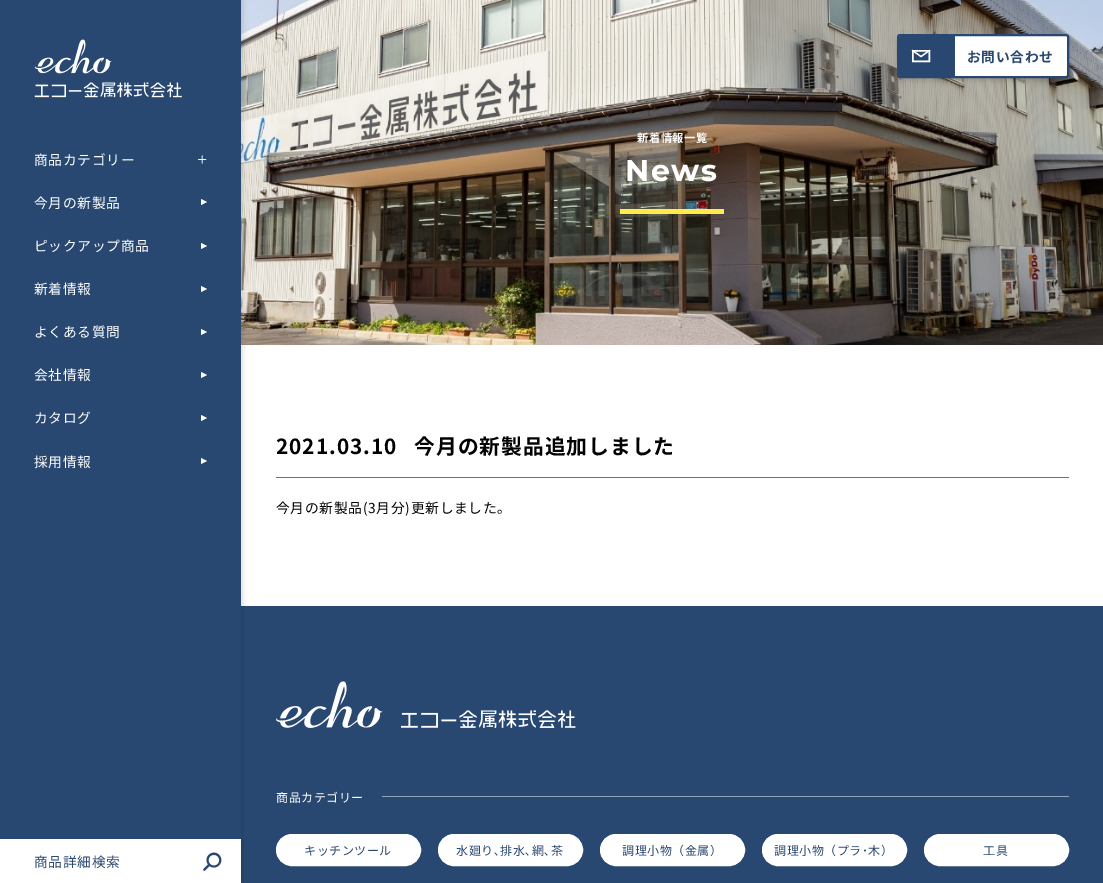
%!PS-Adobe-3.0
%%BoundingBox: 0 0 1103 883
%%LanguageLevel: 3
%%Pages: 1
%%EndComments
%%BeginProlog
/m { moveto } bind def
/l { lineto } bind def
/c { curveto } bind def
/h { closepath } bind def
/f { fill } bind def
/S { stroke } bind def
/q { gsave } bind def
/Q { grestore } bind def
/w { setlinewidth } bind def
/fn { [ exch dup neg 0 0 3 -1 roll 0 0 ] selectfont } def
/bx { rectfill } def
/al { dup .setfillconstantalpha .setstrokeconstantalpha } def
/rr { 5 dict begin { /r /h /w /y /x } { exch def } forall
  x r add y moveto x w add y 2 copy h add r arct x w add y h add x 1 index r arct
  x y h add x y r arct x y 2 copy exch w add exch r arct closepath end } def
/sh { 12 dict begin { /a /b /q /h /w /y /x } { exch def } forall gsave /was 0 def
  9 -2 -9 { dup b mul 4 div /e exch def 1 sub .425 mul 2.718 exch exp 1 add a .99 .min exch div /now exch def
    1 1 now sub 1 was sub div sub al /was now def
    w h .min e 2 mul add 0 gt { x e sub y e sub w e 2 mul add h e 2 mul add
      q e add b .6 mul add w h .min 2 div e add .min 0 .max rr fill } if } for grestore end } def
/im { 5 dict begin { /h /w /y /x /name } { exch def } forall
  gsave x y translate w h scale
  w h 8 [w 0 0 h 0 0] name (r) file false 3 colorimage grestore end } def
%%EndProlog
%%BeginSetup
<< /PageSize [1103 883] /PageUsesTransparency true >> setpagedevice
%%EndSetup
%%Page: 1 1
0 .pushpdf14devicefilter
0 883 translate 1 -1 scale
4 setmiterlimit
1 setgray
0 0 1103 883 bx
(image3.raw) 241 0 862 345 im
0 setgray
897 37 172 44 3 3 0.15 sh
1 setgray
898 35 170 42 2 rr q f Q
0.161 0.282 0.443 setrgbcolor
2 w
S
900.5 36 m 955 36 l 955 76 l 900.5 76 l 899.5 76 899 75.5 899 74.5 c 899 37.5 l 899 36.5 899.5 36 900.5 36 c h f
1 setgray
1.5 w
912.75 50.75 16.5 10.5 rectstroke
1.3 w
1 setlinecap
1 setlinejoin
912.5 50.5 m 921 56.5 l 929.5 50.5 l S
/NotoSansJP-Bold 13.75 fn
0.161 0.282 0.443 setrgbcolor
967 62 m 0.7 0 (お問い合わせ) ashow
241 606 862 277 bx
0 setgray
2 0 241 883 0 2.5 0.12 sh
0.161 0.282 0.443 setrgbcolor
0 0 241 839 bx
(image0.raw) 34 39 148 59 im
/NotoSansJP-Regular 13.75 fn
1 setgray
34 165 m 0.7 0 (商品カテゴリー) ashow
(image1.raw) 198 155 9 9 im
34 208 m 0.7 0 (今月の新製品) ashow
201 205 m 201 199 l 207 202 l h f
34 251 m 0.7 0 (ピックアップ商品) ashow
201 249 m 201 243 l 207 246 l h f
34 294 m 0.7 0 (新着情報) ashow
201 292 m 201 286 l 207 289 l h f
34 337 m 0.7 0 (よくある質問) ashow
201 335 m 201 329 l 207 332 l h f
34 380 m 0.7 0 (会社情報) ashow
201 378 m 201 372 l 207 375 l h f
34 423 m 0.7 0 (カタログ) ashow
201 421 m 201 415 l 207 418 l h f
34 467 m 0.7 0 (採用情報) ashow
201 464 m 201 458 l 207 461 l h f
0 839 241 44 bx
0.161 0.282 0.443 setrgbcolor
34 867 m 0.7 0 (商品詳細検索) ashow
(image2.raw) 203 852 19 19 im
/NotoSansJP-Bold 11.25 fn
1 setgray
637 142 m 0.5 0 (新着情報一覧) ashow
/Montserrat-Thin 30 fn
625 181 m 1.5 0 (News) ashow
1 0.925 0.29 setrgbcolor
620 209 104 5 bx
0.439 setgray
276 477 793 1 bx
/NotoSansJP-Bold 20.75 fn
0 setgray
276 454 m 1 0 (2021.03.10) ashow
414 454 m 1 0 (今月の新製品追加しました) ashow
/NotoSansJP-Regular 13.75 fn
276 513 m 0.7 0 (今月の新製品\(3月分\)更新しました。) ashow
(image4.raw) 276 681 300 47 im
/NotoSansJP-Regular 12 fn
1 setgray
276 802 m 0.5 0 (商品カテゴリー) ashow
0.58 0.643 0.722 setrgbcolor
382 796 687 1 bx
1 setgray
276.5 834.5 144 31 15.5 rr q f Q
1 w
0 setlinecap
0 setlinejoin
S
0.161 0.282 0.443 setrgbcolor
304 855 m 0.5 0 (キッチンツール) ashow
1 setgray
438.5 834.5 144 31 15.5 rr q f Q
S
0.161 0.282 0.443 setrgbcolor
456 855 m 0.5 0 (水廻り､排水､網､茶) ashow
1 setgray
600.5 834.5 144 31 15.5 rr q f Q
S
0.161 0.282 0.443 setrgbcolor
622 855 m 0.5 0 (調理小物（金属）) ashow
1 setgray
762.5 834.5 144 31 15.5 rr q f Q
S
0.161 0.282 0.443 setrgbcolor
774 855 m 0.5 0 (調理小物（プラ･木）) ashow
1 setgray
924.5 834.5 144 31 15.5 rr q f Q
S
0.161 0.282 0.443 setrgbcolor
983 855 m 0.5 0 (工具) ashow
.poppdf14devicefilter showpage
%%EOF
